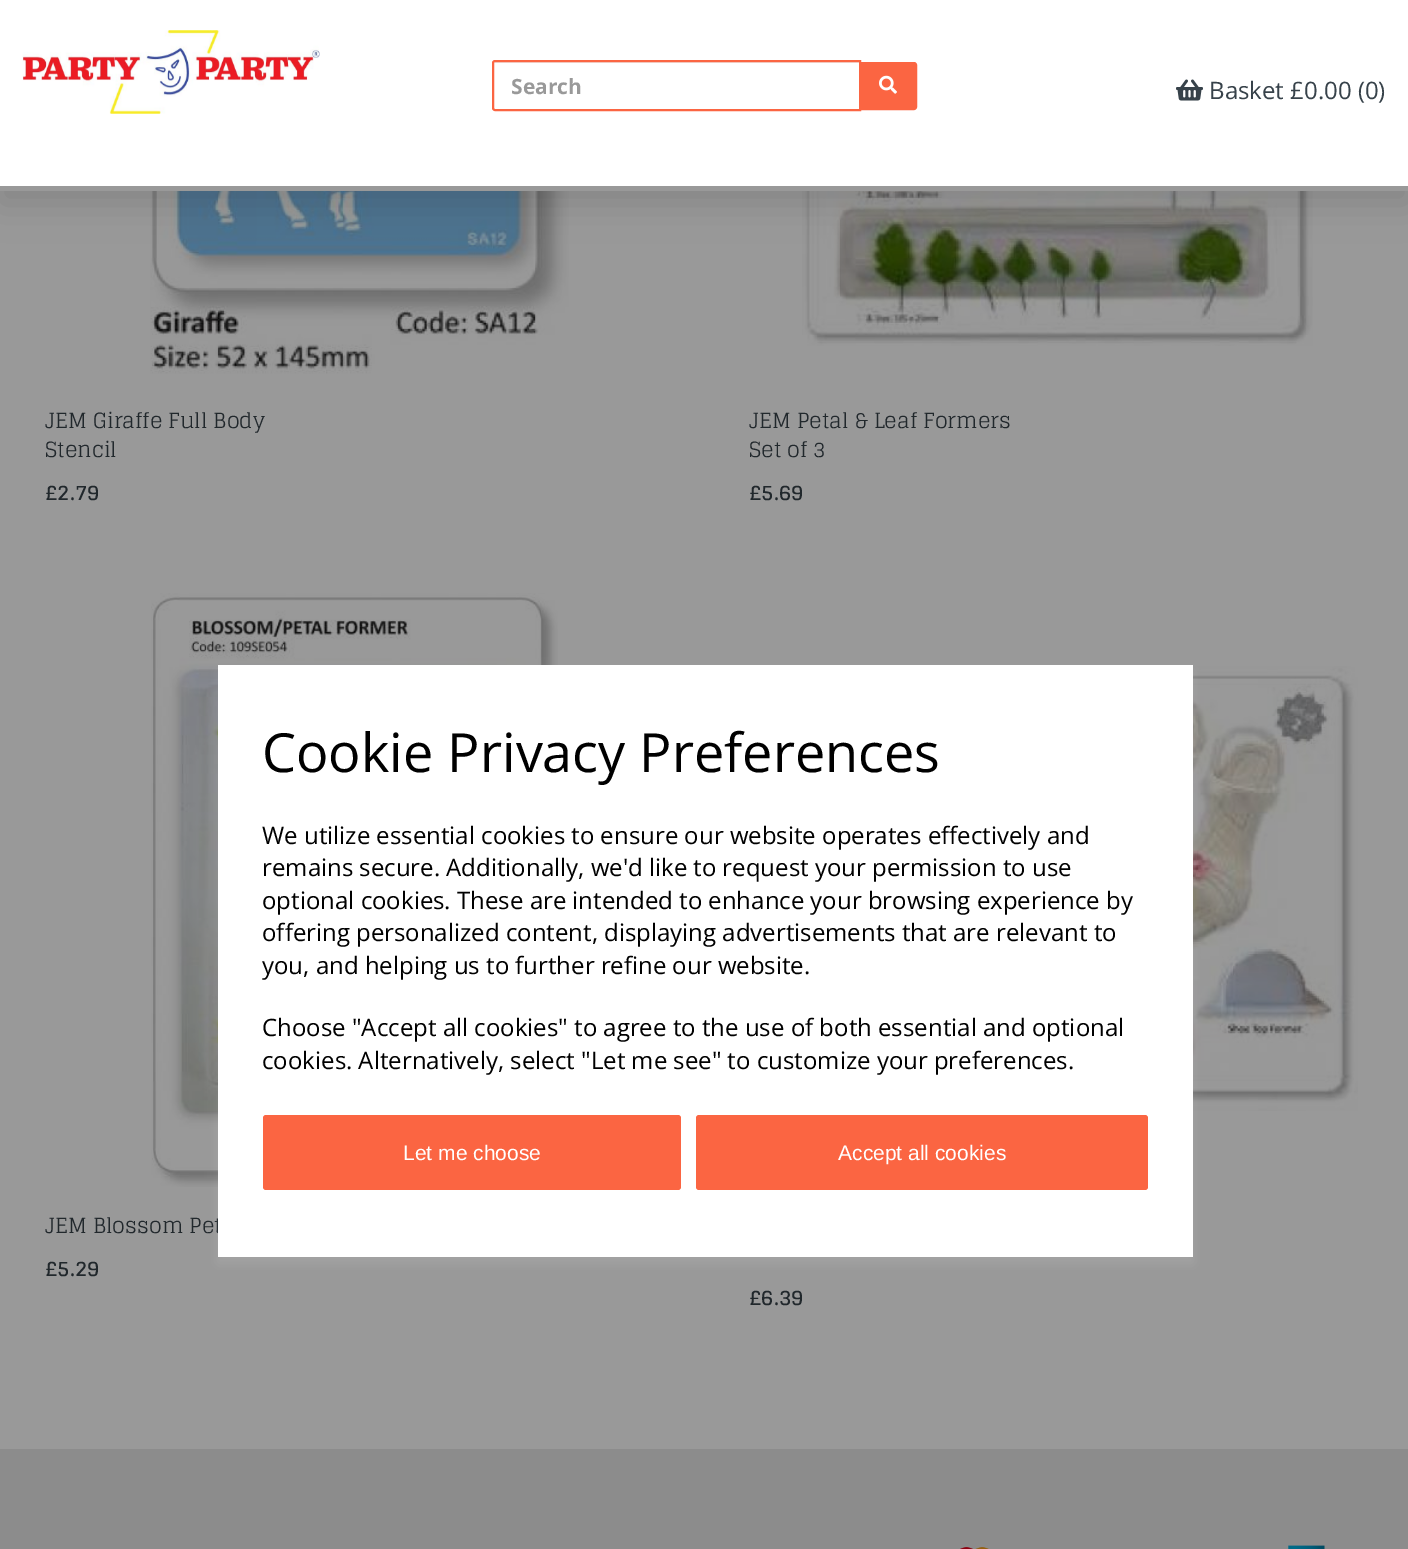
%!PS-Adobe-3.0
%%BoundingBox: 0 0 1408 1549
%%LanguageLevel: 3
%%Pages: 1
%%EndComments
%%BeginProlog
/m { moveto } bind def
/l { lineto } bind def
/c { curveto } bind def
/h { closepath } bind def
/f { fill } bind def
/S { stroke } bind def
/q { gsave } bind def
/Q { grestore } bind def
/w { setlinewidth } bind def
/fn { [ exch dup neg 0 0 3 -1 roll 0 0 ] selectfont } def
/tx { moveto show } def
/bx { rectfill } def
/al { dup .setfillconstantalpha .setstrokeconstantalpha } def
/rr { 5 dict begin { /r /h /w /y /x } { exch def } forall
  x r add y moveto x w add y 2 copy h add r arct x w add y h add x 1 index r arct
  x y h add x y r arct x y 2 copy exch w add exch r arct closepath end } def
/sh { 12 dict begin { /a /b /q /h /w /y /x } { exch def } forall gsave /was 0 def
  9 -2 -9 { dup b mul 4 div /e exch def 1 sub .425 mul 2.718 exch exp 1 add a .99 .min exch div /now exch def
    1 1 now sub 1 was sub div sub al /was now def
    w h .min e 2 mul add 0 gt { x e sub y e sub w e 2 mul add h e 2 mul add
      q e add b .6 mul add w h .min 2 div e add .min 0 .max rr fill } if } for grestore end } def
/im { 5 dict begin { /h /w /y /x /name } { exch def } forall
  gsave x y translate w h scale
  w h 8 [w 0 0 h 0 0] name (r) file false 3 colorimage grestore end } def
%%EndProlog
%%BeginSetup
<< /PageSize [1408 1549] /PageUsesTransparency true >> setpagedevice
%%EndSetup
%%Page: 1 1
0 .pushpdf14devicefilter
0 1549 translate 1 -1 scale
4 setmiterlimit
1 setgray
0 0 1408 1549 bx
(image3.raw) 150 191 419 183 im
(image4.raw) 802 191 511 155 im
0 setgray
0 12 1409 191 0 18 0.13 sh
1 setgray
0 0 1408 191 bx
(image0.raw) 22 30 298 84 im
0.925 setgray
495 63 m 860 63 l 860 62 l 496 62 l 495 62 494 63 494 63 c h f
0.984 0.396 0.259 setrgbcolor
2 w
495 61 m 860 61 l 860 110 l 495 110 l 494 110 493 109 493 108 c 493 63 l 493 62 494 61 495 61 c h S
/OpenSans-Bold 21 fn
0.6 setgray
(Search) 511 94 tx
0.984 0.396 0.259 setrgbcolor
861 63 m 914 63 l 915 63 916 64 916 65 c 916 107 l 916 108 915 109 914 109 c 861 109 l h q f Q
S
(image1.raw) 879 75 18 19 im
(image2.raw) 1176 79 27 22 im
/OpenSans-Regular 24 fn
0.216 0.259 0.29 setrgbcolor
(Basket £0.00 \(0\)) 1209 99 tx
/Glegoo-Regular 21 fn
(JEM Giraffe Full Body) 45 428 tx
(Stencil) 45 457 tx
/Glegoo-Bold 21 fn
(£2.79) 45 500 tx
/Glegoo-Regular 21 fn
(JEM Petal & Leaf Formers) 749 428 tx
(Set of 3) 749 457 tx
/Glegoo-Bold 21 fn
(£5.69) 749 500 tx
(image5.raw) 151 593 407 594 im
/Glegoo-Regular 21 fn
(JEM Blossom Pet) 45 1233 tx
/Glegoo-Bold 21 fn
(£5.29) 45 1276 tx
(image6.raw) 1193 666 165 445 im
(£6.39) 749 1305 tx
0.918 setgray
0 1449 1408 100 bx
(image7.raw) 960 1547 29 2 im
(image8.raw) 1288 1545 37 4 im
0.4 al
0 setgray
0 186 1408 1363 bx
1 al
1 setgray
218 671 975 592 0 6 0.1 sh
218 665 975 592 bx
/OpenSans-Regular 54 fn
0 setgray
(Cookie Privacy Preferences) 262 772 tx
/OpenSans-Regular 24 fn
(We utilize essential cookies to ensure our website operates effectively and) 262 844 tx
(remains secure. Additionally, we'd like to request your permission to use) 262 876 tx
(optional cookies. These are intended to enhance your browsing experience by) 262 909 tx
(offering personalized content, displaying advertisements that are relevant to) 262 941 tx
(you, and helping us to further refine our website.) 262 974 tx
(Choose "Accept all cookies" to agree to the use of both essential and optional) 262 1036 tx
(cookies. Alternatively, select "Let me see" to customize your preferences.) 262 1069 tx
0.984 0.396 0.259 setrgbcolor
263 1115 418 75 3 rr f
/LiberationSans-Regular 21 fn
1 setgray
(Let me choose) 403 1160 tx
0.984 0.396 0.259 setrgbcolor
696 1115 452 75 3 rr f
1 setgray
(Accept all cookies) 838 1160 tx
.poppdf14devicefilter showpage
%%EOF
